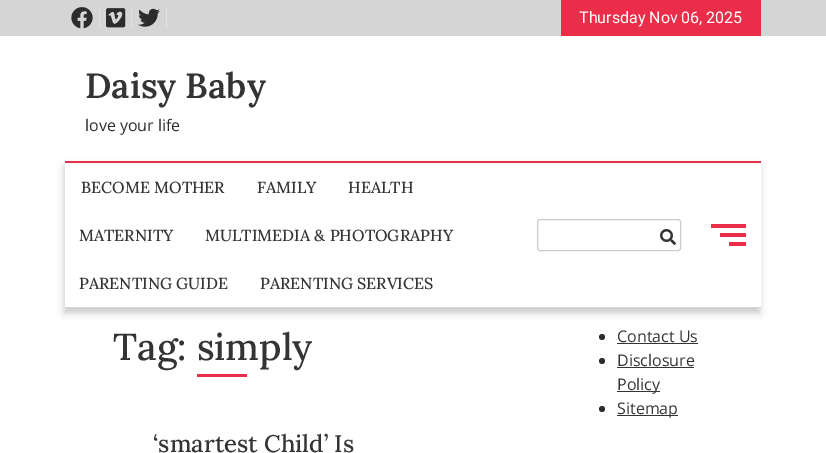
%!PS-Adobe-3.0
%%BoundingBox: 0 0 826 453
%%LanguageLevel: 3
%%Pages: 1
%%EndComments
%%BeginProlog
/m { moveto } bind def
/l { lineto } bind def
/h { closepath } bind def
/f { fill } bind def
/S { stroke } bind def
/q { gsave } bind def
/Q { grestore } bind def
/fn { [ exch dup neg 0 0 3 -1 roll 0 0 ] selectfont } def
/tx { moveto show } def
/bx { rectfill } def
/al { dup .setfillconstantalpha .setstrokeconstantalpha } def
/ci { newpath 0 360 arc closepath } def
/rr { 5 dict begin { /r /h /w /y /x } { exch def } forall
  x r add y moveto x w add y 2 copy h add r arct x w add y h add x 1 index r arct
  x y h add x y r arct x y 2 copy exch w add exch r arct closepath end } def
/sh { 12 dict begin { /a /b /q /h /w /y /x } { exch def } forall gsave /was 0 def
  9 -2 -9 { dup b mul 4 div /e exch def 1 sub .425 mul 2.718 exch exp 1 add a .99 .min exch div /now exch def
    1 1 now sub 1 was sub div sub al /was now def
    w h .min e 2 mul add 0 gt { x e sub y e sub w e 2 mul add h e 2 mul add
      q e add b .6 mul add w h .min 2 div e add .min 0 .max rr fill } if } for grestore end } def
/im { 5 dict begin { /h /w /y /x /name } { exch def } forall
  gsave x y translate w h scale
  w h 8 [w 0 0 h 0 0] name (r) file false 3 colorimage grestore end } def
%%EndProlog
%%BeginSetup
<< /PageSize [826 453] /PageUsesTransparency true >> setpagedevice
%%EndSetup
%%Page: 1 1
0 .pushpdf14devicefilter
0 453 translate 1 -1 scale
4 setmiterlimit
1 setgray
0 0 826 453 bx
0.835 setgray
0 0 826 36 bx
0.882 setgray
99 7 1 22 bx
(image0.raw) 71 7 22 22 im
131 7 1 22 bx
(image1.raw) 106 8 20 20 im
166 7 1 22 bx
(image2.raw) 138 8 22 19 im
0.918 0.18 0.286 setrgbcolor
561 0 200 36 bx
/Roboto-Regular 16 fn
1 setgray
(Thursday Nov 06, 2025) 579 23 tx
/Lora-SemiBold 35 fn
0.204 setgray
(Daisy Baby) 85 98 tx
/OpenSans-Regular 16 fn
0.173 setgray
(love your life) 85 131 tx
q
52 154 m 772 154 l 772 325 l 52 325 l h 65 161 m 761 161 l 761 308 l 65 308 l h eoclip newpath
0 setgray
64 166 696 147 0 3.5 0.2 sh
Q
0.918 0.18 0.286 setrgbcolor
65 161 696 2 bx
0.835 setgray
65 307 696 1 bx
/Lora-Medium 16 fn
0.204 setgray
(BECOME MOTHER) 81 193 tx
(FAMILY) 257 193 tx
(HEALTH) 348 193 tx
(MATERNITY) 79 241 tx
(MULTIMEDIA & PHOTOGRAPHY) 205 241 tx
(PARENTING GUIDE) 79 289 tx
(PARENTING SERVICES) 260 289 tx
0.8 setgray
537.5 219.5 143 31 2.5 rr S
(image3.raw) 660 229 16 16 im
0.918 0.18 0.286 setrgbcolor
711 224 35 4 bx
720 233 26 4 bx
729 242 17 4 bx
/Lora-Medium 37.5 fn
0.204 setgray
(Tag: simply) 113 360 tx
0.918 0.18 0.286 setrgbcolor
197 374 50 3 bx
/Lora-Medium 24 fn
0.204 setgray
(‘smartest Child’ Is) 153 452 tx
0.173 setgray
602 337 3 ci f
/OpenSans-Regular 16 fn
0.204 setgray
(Contact Us) 617 342 tx
617 343 81 1 bx
0.173 setgray
602 361 3 ci f
0.204 setgray
(Disclosure) 617 366 tx
617 367 77 1 bx
617 391 43 1 bx
(Policy) 617 390 tx
0.173 setgray
602 409 3 ci f
0.204 setgray
617 415 61 1 bx
(Sitemap) 617 414 tx
.poppdf14devicefilter showpage
%%EOF
